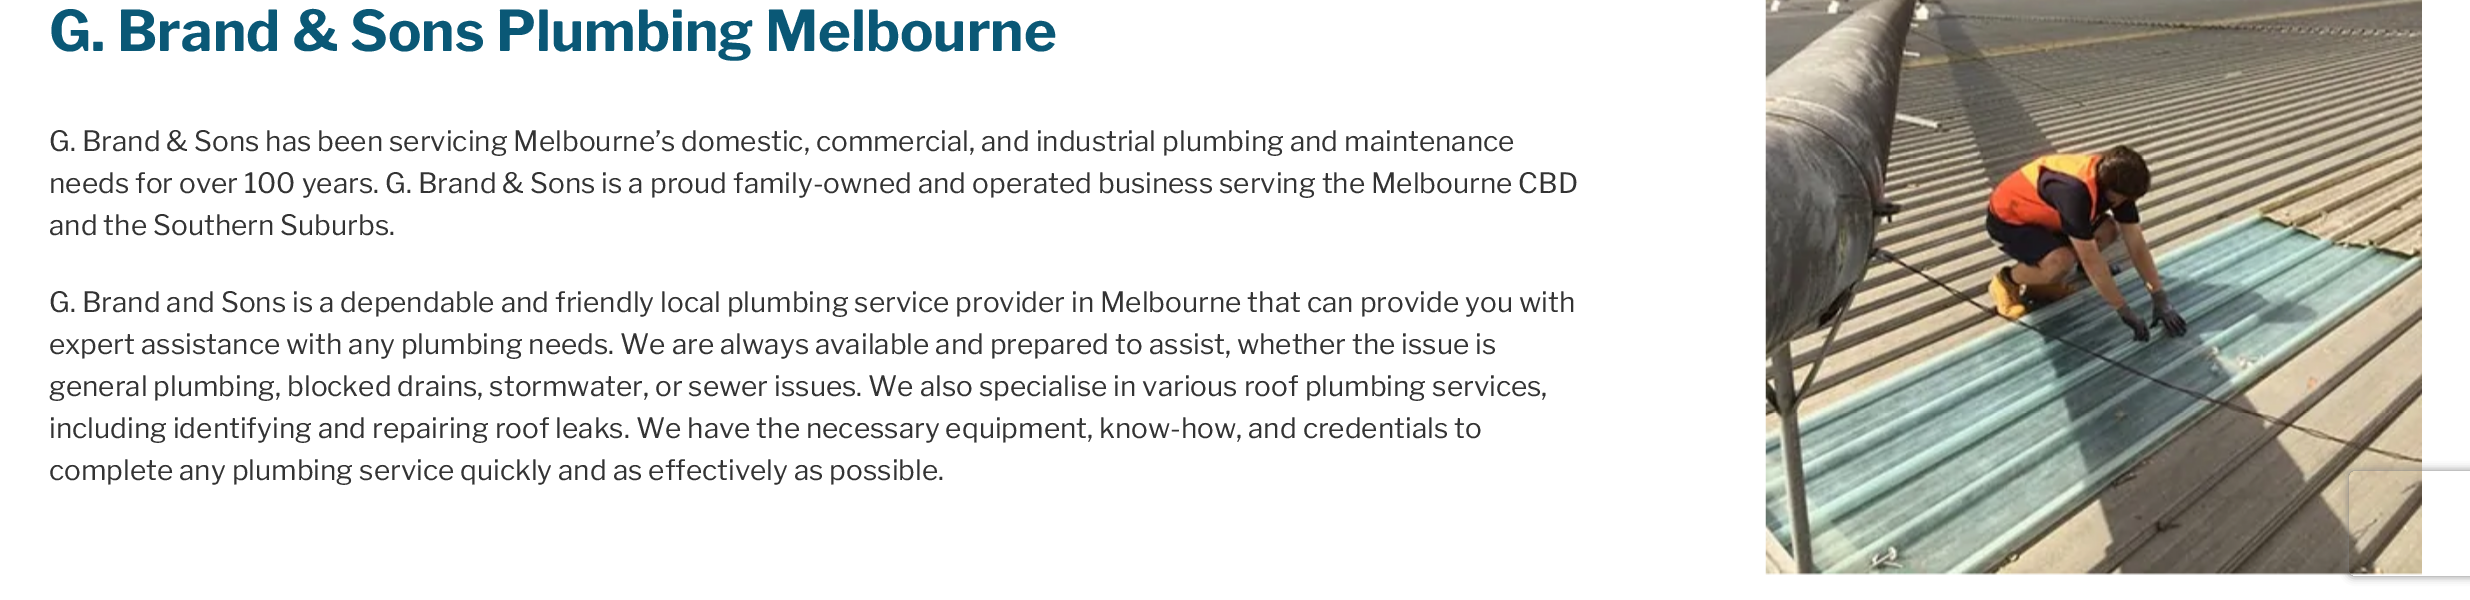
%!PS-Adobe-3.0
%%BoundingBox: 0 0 2470 600
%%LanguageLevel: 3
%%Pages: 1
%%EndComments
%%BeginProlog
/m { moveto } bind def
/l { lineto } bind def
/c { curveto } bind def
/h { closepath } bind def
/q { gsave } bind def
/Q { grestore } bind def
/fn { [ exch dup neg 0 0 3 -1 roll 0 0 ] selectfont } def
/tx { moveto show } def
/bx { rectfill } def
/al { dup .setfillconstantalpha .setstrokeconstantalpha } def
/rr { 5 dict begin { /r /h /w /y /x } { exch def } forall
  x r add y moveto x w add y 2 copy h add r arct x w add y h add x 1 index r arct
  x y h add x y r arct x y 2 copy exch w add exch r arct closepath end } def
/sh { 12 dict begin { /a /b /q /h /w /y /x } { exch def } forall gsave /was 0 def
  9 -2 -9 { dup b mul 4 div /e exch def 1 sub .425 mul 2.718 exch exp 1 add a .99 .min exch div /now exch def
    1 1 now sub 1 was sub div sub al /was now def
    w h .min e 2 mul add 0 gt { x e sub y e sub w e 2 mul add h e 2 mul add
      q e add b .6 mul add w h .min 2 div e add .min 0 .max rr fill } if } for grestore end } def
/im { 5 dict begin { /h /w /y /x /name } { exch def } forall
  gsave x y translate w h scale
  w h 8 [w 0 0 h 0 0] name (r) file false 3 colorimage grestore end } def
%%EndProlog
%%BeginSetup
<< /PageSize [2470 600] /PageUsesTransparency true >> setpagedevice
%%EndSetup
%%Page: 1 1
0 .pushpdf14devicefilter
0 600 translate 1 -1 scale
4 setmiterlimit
1 setgray
0 0 2470 600 bx
/LibreFranklin-Bold 56 fn
0.039 0.345 0.463 setrgbcolor
(G. Brand & Sons Plumbing Melbourne) 49 51 tx
(image0.raw) 1765 0 657 575 im
/LibreFranklin-Regular 28 fn
0.2 setgray
(G. Brand & Sons has been servicing Melbourne’s domestic, commercial, and industrial plumbing and maintenance) 49 151 tx
(needs for over 100 years. G. Brand & Sons is a proud family-owned and operated business serving the Melbourne CBD) 49 193 tx
(and the Southern Suburbs.) 49 235 tx
(G. Brand and Sons is a dependable and friendly local plumbing service provider in Melbourne that can provide you with) 49 312 tx
(expert assistance with any plumbing needs. We are always available and prepared to assist, whether the issue is) 49 354 tx
(general plumbing, blocked drains, stormwater, or sewer issues. We also specialise in various roof plumbing services,) 49 396 tx
(including identifying and repairing roof leaks. We have the necessary equipment, know-how, and credentials to) 49 438 tx
(complete any plumbing service quickly and as effectively as possible.) 49 480 tx
q
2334 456 m 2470 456 l 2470 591 l 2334 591 l h 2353 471 m 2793 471 l 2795 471 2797 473 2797 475 c 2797 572 l 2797 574 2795 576 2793 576 c 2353 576 l 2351 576 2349 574 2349 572 c 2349 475 l 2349 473 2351 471 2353 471 c h eoclip newpath
0.502 setgray
2349 471 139 105 4 4.5 1 sh
Q
.poppdf14devicefilter showpage
%%EOF
